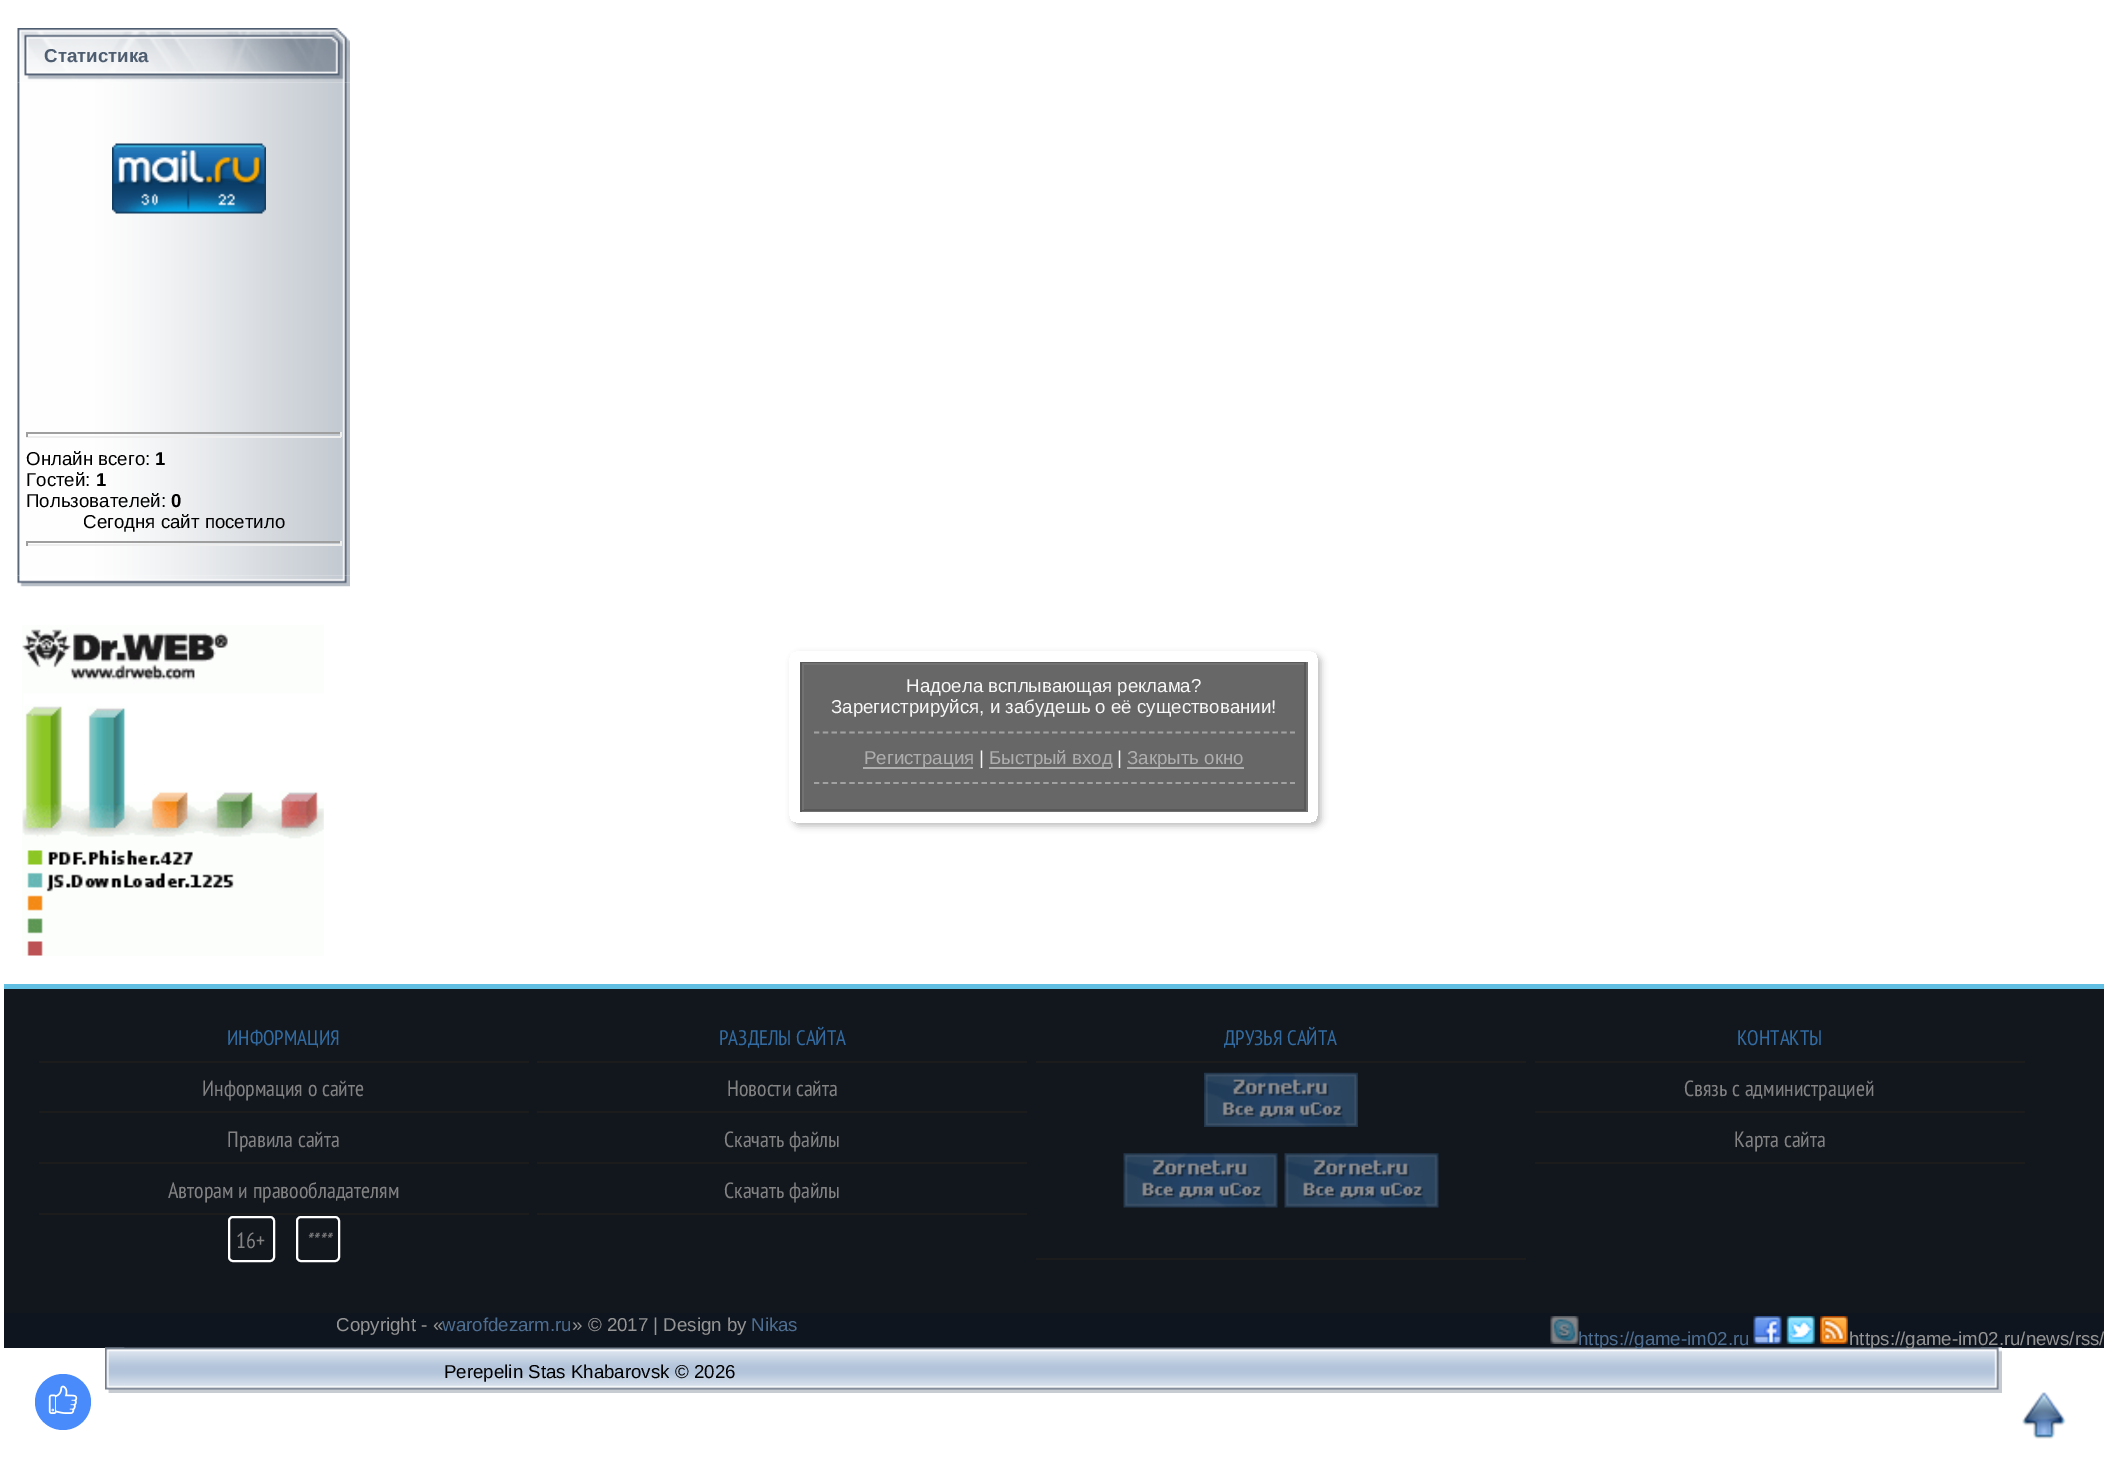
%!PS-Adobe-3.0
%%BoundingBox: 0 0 2106 1472
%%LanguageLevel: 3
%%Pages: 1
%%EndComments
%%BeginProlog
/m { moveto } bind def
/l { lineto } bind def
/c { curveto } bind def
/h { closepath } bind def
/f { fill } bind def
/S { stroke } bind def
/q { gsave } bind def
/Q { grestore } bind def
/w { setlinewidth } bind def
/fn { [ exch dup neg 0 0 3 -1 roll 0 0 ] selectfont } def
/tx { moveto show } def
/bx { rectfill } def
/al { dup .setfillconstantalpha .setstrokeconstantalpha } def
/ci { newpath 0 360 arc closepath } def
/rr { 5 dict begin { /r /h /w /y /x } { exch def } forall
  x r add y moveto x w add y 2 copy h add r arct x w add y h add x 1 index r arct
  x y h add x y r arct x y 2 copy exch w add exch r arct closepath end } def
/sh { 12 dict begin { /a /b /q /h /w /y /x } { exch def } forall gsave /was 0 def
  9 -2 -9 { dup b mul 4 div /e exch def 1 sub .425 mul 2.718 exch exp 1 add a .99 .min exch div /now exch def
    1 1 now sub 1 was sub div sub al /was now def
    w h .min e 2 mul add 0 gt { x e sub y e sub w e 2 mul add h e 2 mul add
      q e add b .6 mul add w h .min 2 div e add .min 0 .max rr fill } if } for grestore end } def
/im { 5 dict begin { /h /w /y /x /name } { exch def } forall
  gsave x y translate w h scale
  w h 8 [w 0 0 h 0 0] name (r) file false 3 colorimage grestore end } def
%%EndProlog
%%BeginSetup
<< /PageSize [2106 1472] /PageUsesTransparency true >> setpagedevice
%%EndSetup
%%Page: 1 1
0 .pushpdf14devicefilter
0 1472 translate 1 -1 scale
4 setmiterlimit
1 setgray
0 0 2106 1472 bx
(image0.raw) 17 28 333 55 im
/LiberationSans-Bold 18.7 fn
0.31 0.365 0.443 setrgbcolor
(Статистика) 44 62 tx
(image1.raw) 17 82 333 494 im
(image2.raw) 112 143 154 71 im
0.624 setgray
26 432 315 2 bx
0.933 setgray
340 432 2 5 bx
26 436 315 2 bx
0.624 setgray
26 432 2 5 bx
/LiberationSans-Regular 18.7 fn
0 setgray
(Онлайн всего:) 26 465 tx
/LiberationSans-Bold 18.7 fn
(1) 155 465 tx
/LiberationSans-Regular 18.7 fn
(Гостей:) 26 486 tx
/LiberationSans-Bold 18.7 fn
(1) 96 486 tx
/LiberationSans-Regular 18.7 fn
(Пользователей:) 26 507 tx
/LiberationSans-Bold 18.7 fn
(0) 171 507 tx
/LiberationSans-Regular 18.7 fn
(Сегодня сайт посетило) 83 528 tx
0.624 setgray
26 541 315 2 bx
0.933 setgray
340 541 2 5 bx
26 544 315 2 bx
0.624 setgray
26 541 2 5 bx
(image3.raw) 17 575 333 12 im
(image4.raw) 22 625 302 331 im
q
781 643 m 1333 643 l 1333 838 l 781 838 l h 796 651 m 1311 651 l 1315 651 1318 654 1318 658 c 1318 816 l 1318 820 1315 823 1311 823 c 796 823 l 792 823 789 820 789 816 c 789 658 l 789 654 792 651 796 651 c h eoclip newpath
0 setgray
793 655 528 171 7 3.5 0.25 sh
Q
0.404 setgray
804 665 500 144 bx
0.349 setgray
800 662 507 1 bx
0.447 setgray
1306 662 2 150 bx
800 810 507 2 bx
0.349 setgray
800 662 2 150 bx
0.447 setgray
802 663 504 2 bx
0.349 setgray
1304 663 2 147 bx
802 809 504 2 bx
0.447 setgray
802 663 2 147 bx
0.969 setgray
(Надоела всплывающая реклама?) 906 692 tx
(Зарегистрируйся, и забудешь о её существовании!) 831 713 tx
0.631 setgray
1.8 w
[5.25 3.57] 0 setdash
814 732.5 m 1295 732.5 l S
0.682 setgray
863 767 110 2 bx
(Регистрация) 864 764 tx
0.969 setgray
(|) 979 764 tx
0.682 setgray
989 767 122 2 bx
(Быстрый вход) 989 764 tx
0.969 setgray
(|) 1117 764 tx
0.682 setgray
1127 767 117 2 bx
(Закрыть окно) 1127 764 tx
0.631 setgray
814 783 m 1295 783 l S
0.384 0.749 0.894 setrgbcolor
4 984 2100 5 bx
0.071 0.09 0.118 setrgbcolor
4 989 2100 324 bx
/PTSansNarrow-Regular 21 fn
0.196 0.42 0.631 setrgbcolor
(ИНФОРМАЦИЯ) 227 1045 tx
0.11 setgray
39 1061 490 2 bx
0.196 0.42 0.631 setrgbcolor
(РАЗДЕЛЫ САЙТА) 719 1045 tx
0.11 setgray
537 1061 490 2 bx
0.196 0.42 0.631 setrgbcolor
(ДРУЗЬЯ САЙТА) 1224 1045 tx
0.11 setgray
1036 1061 490 2 bx
0.196 0.42 0.631 setrgbcolor
(КОНТАКТЫ) 1737 1045 tx
0.11 setgray
1535 1061 490 2 bx
/PTSansNarrow-Regular 22 fn
0.51 setgray
(Информация о сайте) 202 1096 tx
0.11 setgray
39 1111 490 2 bx
0.51 setgray
(Правила сайта) 227 1147 tx
0.11 setgray
39 1162 490 2 bx
0.51 setgray
(Авторам и правообладателям) 168 1198 tx
0.11 setgray
39 1213 490 2 bx
1 setgray
2 w
[] 0 setdash
229 1217 45 44 4 rr S
0.51 setgray
(16+) 236 1248 tx
1 setgray
297 1217 42 44 4 rr S
/PTSansNarrow-Italic 22 fn
0.51 setgray
(****) 305 1248 tx
/PTSansNarrow-Regular 22 fn
(Новости сайта) 727 1096 tx
0.11 setgray
537 1111 490 2 bx
0.51 setgray
(Скачать файлы) 724 1147 tx
0.11 setgray
537 1162 490 2 bx
0.51 setgray
(Скачать файлы) 724 1198 tx
0.11 setgray
537 1213 490 2 bx
(image5.raw) 1204 1072 154 55 im
(image6.raw) 1123 1153 155 55 im
(image6.raw) 1284 1153 155 55 im
1036 1258 490 2 bx
0.51 setgray
(Связь с администрацией) 1684 1096 tx
0.11 setgray
1535 1111 490 2 bx
0.51 setgray
(Карта сайта) 1734 1147 tx
0.11 setgray
1535 1162 490 2 bx
0.059 0.082 0.118 setrgbcolor
4 1313 2100 35 bx
/LiberationSans-Regular 18.7 fn
0.584 setgray
(Copyright - «) 336 1331 tx
0.302 0.427 0.569 setrgbcolor
(warofdezarm.ru) 442 1331 tx
0.584 setgray
(» © 2017 | Design by) 572 1331 tx
0.302 0.427 0.569 setrgbcolor
(Nikas) 751 1331 tx
(image7.raw) 1550 1316 29 28 im
(image12.raw) 105 1347 1897 46 im
(https://game-im02.ru) 1578 1345 tx
(image8.raw) 1753 1316 29 28 im
(image9.raw) 1786 1316 29 28 im
(image10.raw) 1820 1316 28 28 im
0.584 setgray
(https://game-im02.ru/news/rss/) 1849 1345 tx
0.286 0.545 0.98 setrgbcolor
63 1402 28 ci f
(image11.raw) 48 1385 30 29 im
(image13.raw) 105 1347 20 46 im
0 setgray
(Perepelin Stas Khabarovsk © 2026) 444 1378 tx
(image14.raw) 1981 1347 21 43 im
(image15.raw) 2022 1392 44 47 im
.poppdf14devicefilter showpage
%%EOF
